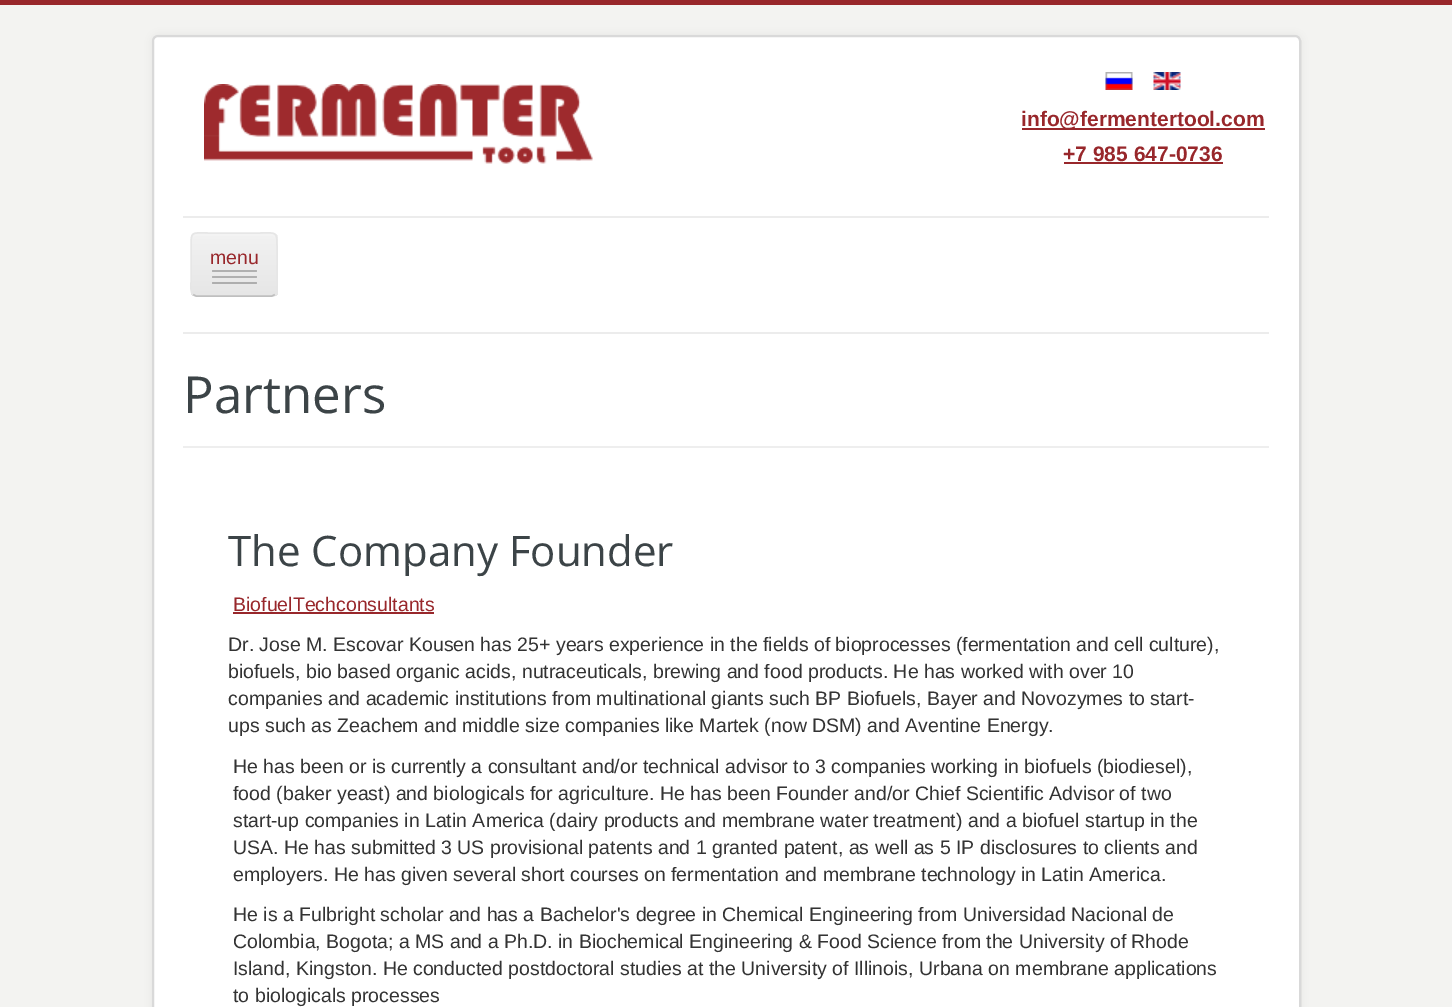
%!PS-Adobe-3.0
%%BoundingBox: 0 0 1452 1007
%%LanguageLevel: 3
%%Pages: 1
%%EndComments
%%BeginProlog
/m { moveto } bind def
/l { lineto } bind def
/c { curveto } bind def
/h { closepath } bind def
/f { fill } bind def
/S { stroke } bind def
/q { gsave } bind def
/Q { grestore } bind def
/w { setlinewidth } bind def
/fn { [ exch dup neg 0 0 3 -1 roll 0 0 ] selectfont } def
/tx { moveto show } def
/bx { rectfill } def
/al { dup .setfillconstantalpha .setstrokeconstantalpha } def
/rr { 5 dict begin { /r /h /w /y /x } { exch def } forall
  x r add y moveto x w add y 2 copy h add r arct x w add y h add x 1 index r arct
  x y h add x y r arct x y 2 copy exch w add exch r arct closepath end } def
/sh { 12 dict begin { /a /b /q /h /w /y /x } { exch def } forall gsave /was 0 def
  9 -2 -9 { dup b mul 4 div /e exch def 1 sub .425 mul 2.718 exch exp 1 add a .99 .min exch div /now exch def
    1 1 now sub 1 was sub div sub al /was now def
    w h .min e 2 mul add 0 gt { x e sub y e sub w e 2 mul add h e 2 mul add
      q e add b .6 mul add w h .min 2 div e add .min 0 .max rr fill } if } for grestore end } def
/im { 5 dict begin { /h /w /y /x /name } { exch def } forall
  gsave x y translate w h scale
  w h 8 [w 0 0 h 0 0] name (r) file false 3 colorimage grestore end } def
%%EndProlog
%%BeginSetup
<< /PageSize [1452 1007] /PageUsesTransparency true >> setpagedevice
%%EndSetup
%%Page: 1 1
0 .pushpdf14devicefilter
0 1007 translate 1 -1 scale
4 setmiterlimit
0.953 0.953 0.945 setrgbcolor
0 0 1452 1007 bx
0.596 0.153 0.169 setrgbcolor
0 0 1452 5 bx
0 setgray
152 35 1149 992 6 4.5 0.05 sh
1 setgray
152 35 1149 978 6 rr f
0.15 al
0 setgray
2 w
153 36 1147 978 5 rr S
1 al
(image0.raw) 204 84 389 80 im
(image1.raw) 1105 72 28 18 im
(image2.raw) 1153 72 28 18 im
0.596 0.153 0.169 setrgbcolor
1022 128 243 2 bx
/LiberationSans-Bold 21 fn
(info@fermentertool.com) 1021 126 tx
(+7 985 647-0736) 1063 161 tx
1064 162 159 2 bx
0.925 setgray
183 216 1086 2 bx
183 332 1086 2 bx
0.929 setgray
191 233 87 64 6 rr f
q
191 233 87 64 6 rr clip newpath
q 191 234 m 278 234 l 278 296 l 191 296 l h clip newpath
<< /ShadingType 2 /ColorSpace /DeviceRGB /Coords [234 234 234 296] /Extend [true true] /Function << /FunctionType 2 /Domain [0 1] /C0 [0.949 0.949 0.949] /C1 [0.902 0.902 0.902] /N 1 >> >> shfill Q
Q
0.953 setgray
196 236 m 272 236 l 274 236 276 238 276 240 c 276 231 264 234 259 234 c 209 234 l 204 234 192 231 192 240 c 192 238 194 236 196 236 c h f
0.749 setgray
1.5 w
275 294.5 m 272 296 l 196 296 l 193 294.5 l S
0.902 setgray
193 294.5 m 190 292 191 285 191 282 c 191 247 l 191 230.5 191.5 233 209 233 c 259 233 l 276.5 233 277 230.5 277 247 c 277 282 l 277 285 278 292 275 294.5 c S
/LiberationSans-Regular 19.5 fn
0.596 0.153 0.169 setrgbcolor
(menu) 210 264 tx
0.69 setgray
212 270 45 2 1 rr f
212 276 45 2 1 rr f
0.682 setgray
212 282 45 2 1 rr f
0.933 setgray
183 446 1086 2 bx
/OpenSans-Regular 51 fn
0.235 0.267 0.278 setrgbcolor
(Partners) 183 413 tx
/OpenSans-Regular 42 fn
(The Company Founder) 228 566 tx
/LiberationSans-Regular 19.5 fn
0.596 0.153 0.169 setrgbcolor
(BiofuelTechconsultants) 233 611 tx
233 612 201 2 bx
0.2 setgray
(Dr. Jose M. Escovar Kousen has 25+ years experience in the fields of bioprocesses \(fermentation and cell culture\),) 228 651 tx
(biofuels, bio based organic acids, nutraceuticals, brewing and food products. He has worked with over 10) 228 678 tx
(companies and academic institutions from multinational giants such BP Biofuels, Bayer and Novozymes to start-) 228 705 tx
(ups such as Zeachem and middle size companies like Martek \(now DSM\) and Aventine Energy.) 228 732 tx
(He has been or is currently a consultant and/or technical advisor to 3 companies working in biofuels \(biodiesel\),) 233 773 tx
(food \(baker yeast\) and biologicals for agriculture. He has been Founder and/or Chief Scientific Advisor of two) 233 800 tx
(start-up companies in Latin America \(dairy products and membrane water treatment\) and a biofuel startup in the) 233 827 tx
(USA. He has submitted 3 US provisional patents and 1 granted patent, as well as 5 IP disclosures to clients and) 233 854 tx
(employers. He has given several short courses on fermentation and membrane technology in Latin America.) 233 881 tx
(He is a Fulbright scholar and has a Bachelor's degree in Chemical Engineering from Universidad Nacional de) 233 921 tx
(Colombia, Bogota; a MS and a Ph.D. in Biochemical Engineering & Food Science from the University of Rhode) 233 948 tx
(Island, Kingston. He conducted postdoctoral studies at the University of Illinois, Urbana on membrane applications) 233 975 tx
(to biologicals processes) 233 1002 tx
.poppdf14devicefilter showpage
%%EOF
